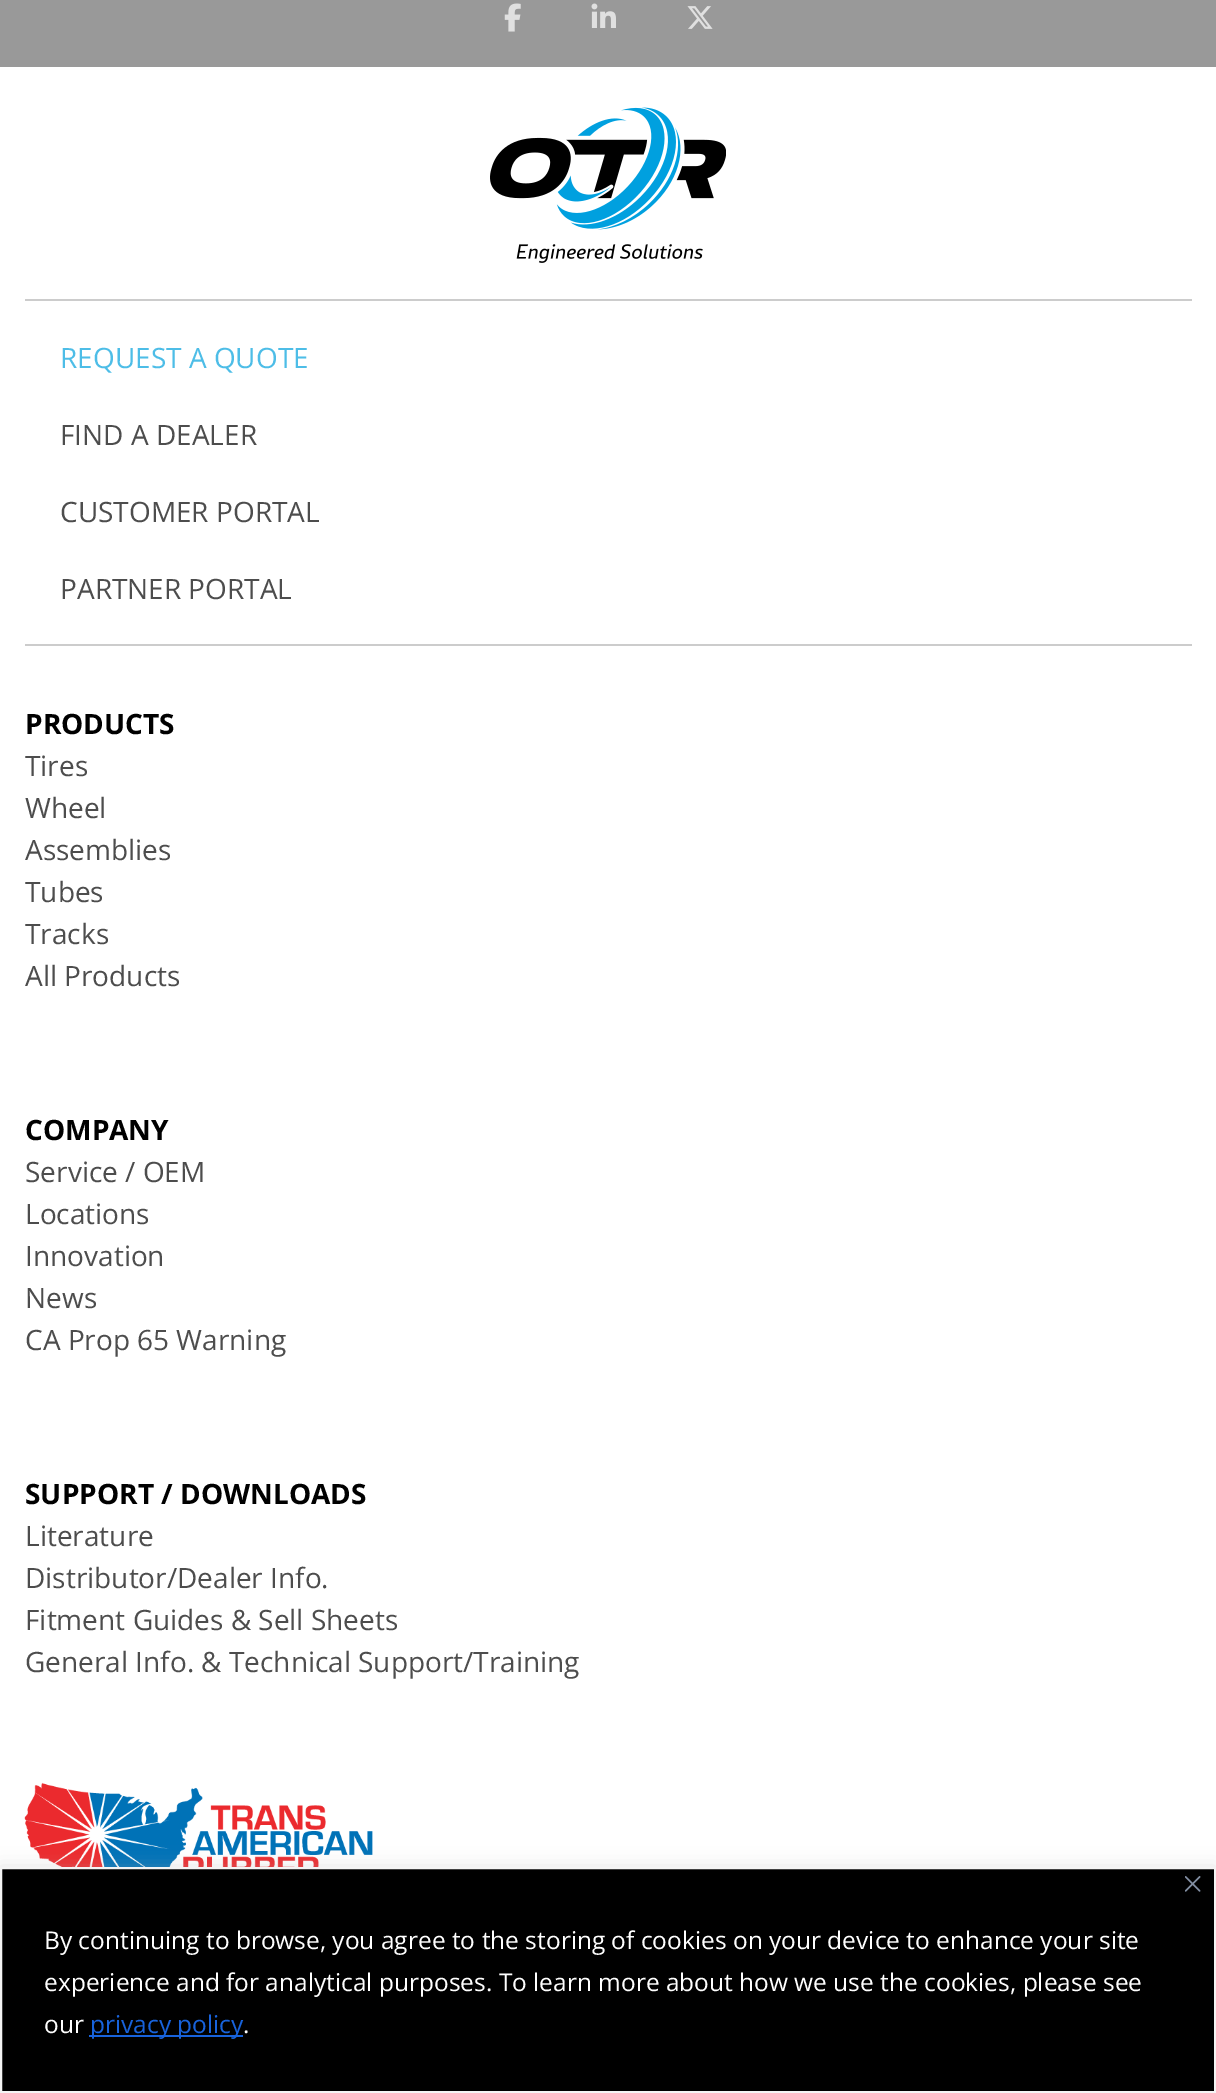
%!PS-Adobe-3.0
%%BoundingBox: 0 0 1216 2093
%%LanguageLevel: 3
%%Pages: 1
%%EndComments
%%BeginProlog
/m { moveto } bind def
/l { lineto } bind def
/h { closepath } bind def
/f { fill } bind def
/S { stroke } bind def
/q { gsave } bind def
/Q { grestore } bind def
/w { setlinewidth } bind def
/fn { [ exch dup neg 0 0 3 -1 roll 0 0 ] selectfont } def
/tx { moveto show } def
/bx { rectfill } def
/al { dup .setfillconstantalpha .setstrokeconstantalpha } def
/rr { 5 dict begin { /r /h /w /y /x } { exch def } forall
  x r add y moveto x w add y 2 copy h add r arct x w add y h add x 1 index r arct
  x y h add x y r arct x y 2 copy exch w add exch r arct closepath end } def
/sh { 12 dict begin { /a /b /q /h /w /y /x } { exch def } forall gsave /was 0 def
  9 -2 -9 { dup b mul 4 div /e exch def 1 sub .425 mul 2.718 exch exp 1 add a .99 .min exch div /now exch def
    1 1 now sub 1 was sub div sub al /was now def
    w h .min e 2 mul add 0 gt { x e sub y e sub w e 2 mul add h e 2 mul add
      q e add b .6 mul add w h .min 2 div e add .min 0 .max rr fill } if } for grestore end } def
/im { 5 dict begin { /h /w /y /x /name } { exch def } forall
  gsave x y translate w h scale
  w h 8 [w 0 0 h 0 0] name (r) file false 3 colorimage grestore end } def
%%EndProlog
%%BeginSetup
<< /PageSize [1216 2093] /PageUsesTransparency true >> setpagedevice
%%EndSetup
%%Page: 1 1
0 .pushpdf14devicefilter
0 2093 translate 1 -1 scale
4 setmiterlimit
1 setgray
0 0 1216 2093 bx
0.6 setgray
0 0 1216 67 bx
(image0.raw) 504 3 17 29 im
(image1.raw) 591 3 25 25 im
(image2.raw) 687 6 26 23 im
(image3.raw) 490 107 236 156 im
0.8 setgray
25 299 1167 2 bx
25 644 1167 2 bx
/OpenSans-Regular 28 fn
0.302 0.741 0.906 setrgbcolor
(REQUEST A QUOTE) 60 368 tx
0.302 setgray
(FIND A DEALER) 60 445 tx
(CUSTOMER PORTAL) 60 522 tx
(PARTNER PORTAL) 60 599 tx
/OpenSans-Bold 28 fn
0 setgray
(PRODUCTS) 25 734 tx
/OpenSans-Regular 28 fn
0.302 setgray
(Tires) 25 776 tx
(Wheel) 25 818 tx
(Assemblies) 25 860 tx
(Tubes) 25 902 tx
(Tracks) 25 944 tx
(All Products) 25 986 tx
/OpenSans-Bold 28 fn
0 setgray
(COMPANY) 25 1140 tx
/OpenSans-Regular 28 fn
0.302 setgray
(Service / OEM) 25 1182 tx
(Locations) 25 1224 tx
(Innovation) 25 1266 tx
(News) 25 1308 tx
(CA Prop 65 Warning) 25 1350 tx
/OpenSans-Bold 28 fn
0 setgray
(SUPPORT / DOWNLOADS) 25 1504 tx
/OpenSans-Regular 28 fn
0.302 setgray
(Literature) 25 1546 tx
(Distributor/Dealer Info.) 25 1588 tx
(Fitment Guides & Sell Sheets) 25 1630 tx
(General Info. & Technical Support/Training) 25 1672 tx
(image4.raw) 24 1782 349 85 im
0.675 0.671 0.671 setrgbcolor
0 1866 1216 225 0 9 0.3 sh
0 setgray
1 1868 m 1215 1868 l 1215 2092 l 1 2092 l h q f Q
0.957 setgray
2 w
S
(image5.raw) 1185 1876 16 16 im
/OpenSans-Regular 24.5 fn
1 setgray
(By continuing to browse, you agree to the storing of cookies on your device to enhance your site) 44 1949 tx
(experience and for analytical purposes. To learn more about how we use the cookies, please see) 44 1991 tx
(our) 44 2033 tx
0.094 0.388 0.863 setrgbcolor
89 2035 154 2 bx
(privacy policy) 90 2033 tx
1 setgray
(.) 243 2033 tx
.poppdf14devicefilter showpage
%%EOF
